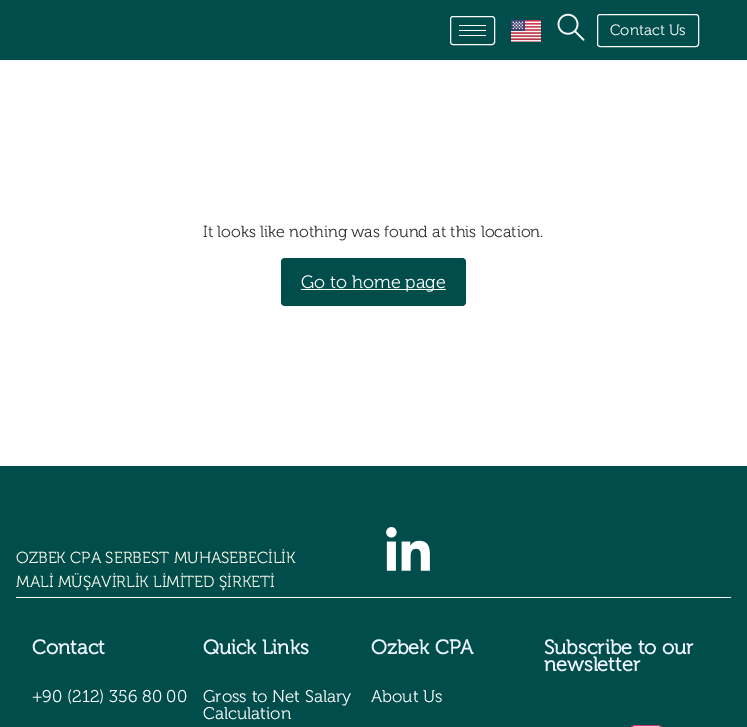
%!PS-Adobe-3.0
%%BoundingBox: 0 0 747 727
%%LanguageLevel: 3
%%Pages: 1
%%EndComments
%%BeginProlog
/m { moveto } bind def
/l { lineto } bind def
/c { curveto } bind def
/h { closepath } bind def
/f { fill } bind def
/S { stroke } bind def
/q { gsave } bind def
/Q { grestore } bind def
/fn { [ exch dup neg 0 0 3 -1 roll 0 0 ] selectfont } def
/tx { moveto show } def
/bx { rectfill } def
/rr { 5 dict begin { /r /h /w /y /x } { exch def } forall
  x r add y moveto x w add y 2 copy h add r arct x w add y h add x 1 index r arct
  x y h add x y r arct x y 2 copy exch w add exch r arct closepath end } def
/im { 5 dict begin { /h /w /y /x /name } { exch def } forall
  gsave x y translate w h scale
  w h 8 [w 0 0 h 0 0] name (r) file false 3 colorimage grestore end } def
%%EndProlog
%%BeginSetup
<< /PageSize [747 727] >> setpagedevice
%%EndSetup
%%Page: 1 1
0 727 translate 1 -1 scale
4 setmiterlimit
1 setgray
0 0 747 727 bx
0 0.302 0.298 setrgbcolor
0 0 747 60 bx
1 setgray
450.5 16.5 44 28 2.5 rr S
459 25 27 1 bx
459 30 27 1 bx
459 35 27 1 bx
(image0.raw) 511 20 30 22 im
(image1.raw) 557 13 28 28 im
597.5 14.5 101 32 2.5 rr S
/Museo-Light 15 fn
(Contact Us) 610 35 tx
/Museo-Light 16 fn
0.2 setgray
(It looks like nothing was found at this location.) 203 237 tx
0 0.302 0.298 setrgbcolor
281 258 185 48 4 rr f
1 setgray
301 289 145 1 bx
/Museo-Light 18 fn
(Go to home page) 301 288 tx
0 0.302 0.298 setrgbcolor
0 466 747 261 bx
/Museo-Light 16 fn
0.988 0.988 0.925 setrgbcolor
(OZBEK CPA SERBEST MUHASEBECİLİK) 16 563 tx
(MALİ MÜŞAVİRLİK LİMİTED ŞİRKETİ) 16 587 tx
(image2.raw) 386 527 44 44 im
1 setgray
16 597 715 1 bx
/Museo-Bold 20 fn
0.933 0.961 1 setrgbcolor
(Contact) 32 654 tx
/Museo-Light 17 fn
1 setgray
(+90 \(212\) 356 80 00) 32 702 tx
/Museo-Bold 20 fn
0.933 0.961 1 setrgbcolor
(Quick Links) 203 654 tx
/Museo-Light 17 fn
1 setgray
(Gross to Net Salary) 203 702 tx
(Calculation) 203 719 tx
/Museo-Bold 20 fn
0.933 0.961 1 setrgbcolor
(Ozbek CPA) 371 654 tx
/Museo-Light 17 fn
1 setgray
(About Us) 371 702 tx
/Museo-Bold 20 fn
0.933 0.961 1 setrgbcolor
(Subscribe to our) 544 654 tx
(newsletter) 544 671 tx
1 setgray
635 725.5 m 658 725.5 l 660.5 725.5 662.5 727.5 662.5 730 c 662.5 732.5 l 630.5 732.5 l 630.5 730 l 630.5 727.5 632.5 725.5 635 725.5 c h q f Q
0.8 0.2 0.4 setrgbcolor
S
showpage
%%EOF
